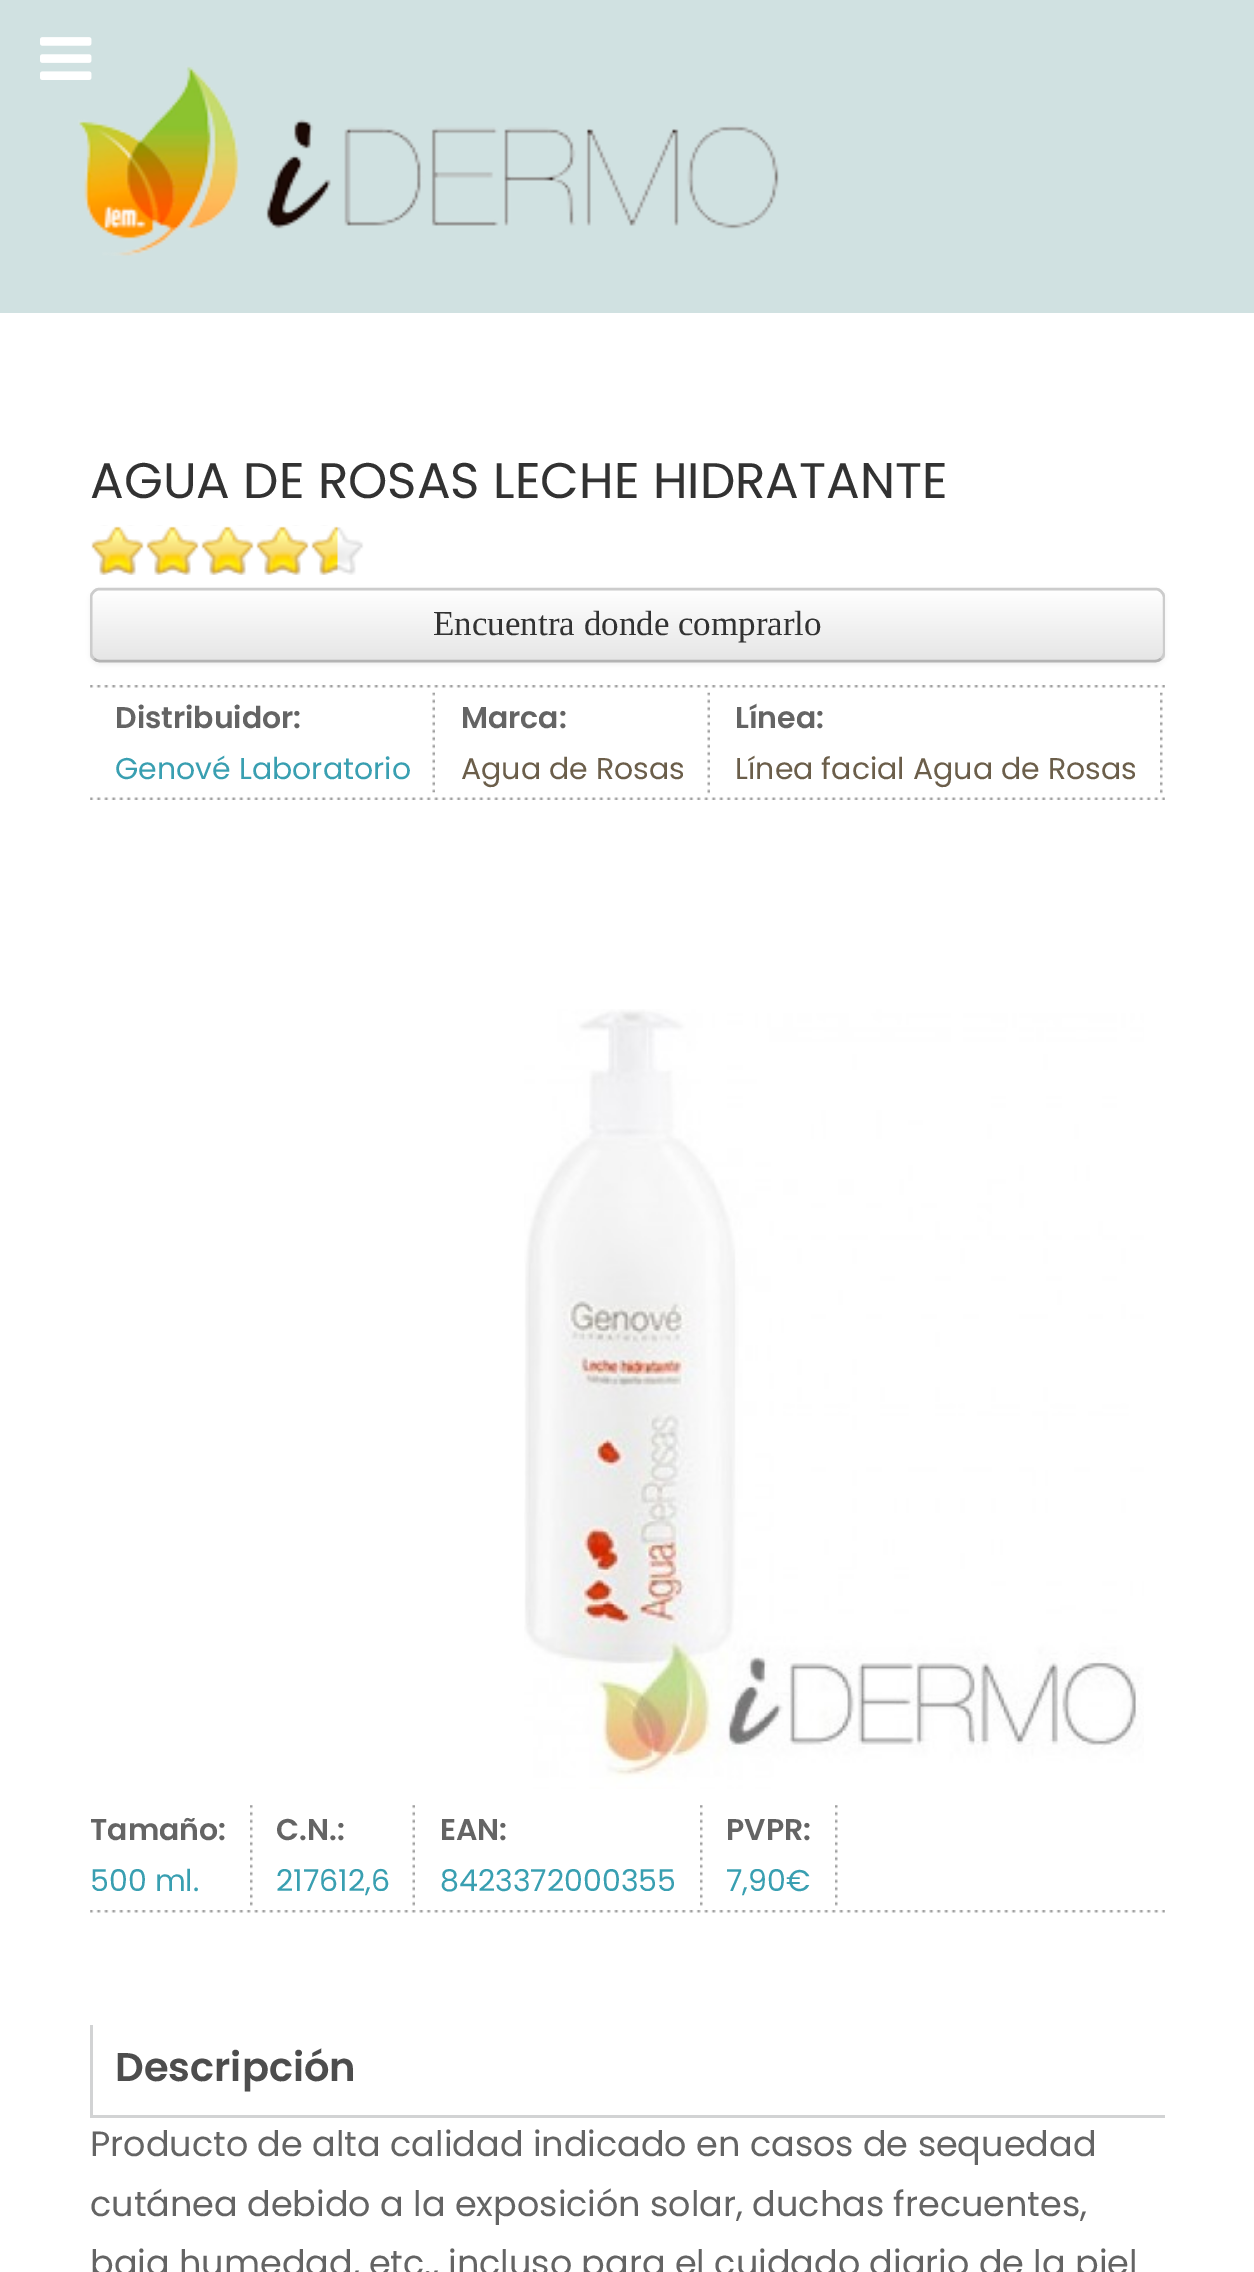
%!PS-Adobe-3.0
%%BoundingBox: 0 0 1254 2272
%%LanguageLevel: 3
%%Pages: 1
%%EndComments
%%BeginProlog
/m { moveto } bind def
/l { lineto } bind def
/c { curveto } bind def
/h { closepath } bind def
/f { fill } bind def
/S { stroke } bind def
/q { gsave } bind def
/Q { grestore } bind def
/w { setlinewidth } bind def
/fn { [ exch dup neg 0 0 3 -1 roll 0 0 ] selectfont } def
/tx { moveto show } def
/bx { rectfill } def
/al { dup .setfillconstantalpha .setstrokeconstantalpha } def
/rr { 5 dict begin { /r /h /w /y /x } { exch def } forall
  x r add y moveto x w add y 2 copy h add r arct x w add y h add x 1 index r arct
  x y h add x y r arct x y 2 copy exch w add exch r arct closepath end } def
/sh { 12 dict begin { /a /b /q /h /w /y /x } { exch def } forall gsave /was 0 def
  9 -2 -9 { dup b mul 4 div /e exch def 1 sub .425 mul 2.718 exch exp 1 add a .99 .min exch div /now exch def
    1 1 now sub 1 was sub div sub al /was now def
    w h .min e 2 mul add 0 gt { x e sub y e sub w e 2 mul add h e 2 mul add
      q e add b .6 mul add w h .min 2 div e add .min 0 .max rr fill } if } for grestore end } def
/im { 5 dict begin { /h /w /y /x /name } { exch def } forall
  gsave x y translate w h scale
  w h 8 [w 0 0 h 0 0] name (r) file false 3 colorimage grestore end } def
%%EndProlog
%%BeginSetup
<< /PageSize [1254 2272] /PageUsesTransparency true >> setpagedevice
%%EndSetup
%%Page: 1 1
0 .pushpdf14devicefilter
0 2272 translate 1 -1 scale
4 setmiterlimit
0.816 0.882 0.882 setrgbcolor
0 0 1254 2272 bx
(image1.raw) 78 66 701 190 im
(image0.raw) 40 37 52 43 im
1 setgray
0 313 1254 1959 bx
(image2.raw) 90 685 1075 3 im
/Poppins-Regular 50 fn
0.196 setgray
(AGUA DE ROSAS LECHE HIDRATANTE) 90 498 tx
(image3.raw) 91 527 273 48 im
(image4.raw) 91 525 247 50 im
0 setgray
90 590 1075 75 10 2.5 0.05 sh
0.961 setgray
90 588 1075 75 10 rr f
q
90 588 1075 75 10 rr clip newpath
q 90 590 m 1165 590 l 1165 660 l 90 660 l h clip newpath
<< /ShadingType 2 /ColorSpace /DeviceRGB /Coords [628 590 628 660] /Extend [true true] /Function << /FunctionType 2 /Domain [0 1] /C0 [1 1 1] /C1 [0.902 0.902 0.902] /N 1 >> >> shfill Q
Q
0.2 al
1 setgray
100 592 m 1155 592 l 1159 592 1162 596 1162 600 c 1162 656 l 1163 655 1163 653 1163 652 c 1163 598 l 1163 594 1159 590 1155 590 c 101 590 l 97 590 94 593 93 596 c 95 594 97 592 100 592 c h f
1 al
0.702 setgray
2.5 w
1161 658.5 m 1159.5 660.5 1157.5 661 1155 661 c 100 661 l 97.5 661 95.5 660.5 94 658.5 c S
q
90 450 1075 238 rectclip
0.8 setgray
94 658.5 m 92 657 91 655 91 652.5 c 91 597.5 l 91 595 92 593 94 591.5 c 95.5 589.5 97.5 589 100 589 c 1155 589 l 1157.5 589 1159.5 589.5 1161 591.5 c 1163 593 1164 595 1164 597.5 c 1164 652.5 l 1164 655 1163 657 1161 658.5 c S
Q
/LiberationSerif-Regular 35 fn
0.196 setgray
(Encuentra donde comprarlo) 433 635 tx
(image5.raw) 90 797 1075 3 im
(image6.raw) 432 692 3 101 im
/Poppins-SemiBold 30 fn
0.392 setgray
(Distribuidor:) 115 728 tx
/Poppins-Regular 30 fn
0.224 0.624 0.694 setrgbcolor
(Genové Laboratorio) 115 779 tx
(image7.raw) 707 692 3 102 im
/Poppins-SemiBold 30 fn
0.392 setgray
(Marca:) 461 728 tx
/Poppins-Regular 30 fn
0.42 0.369 0.29 setrgbcolor
(Agua de Rosas) 461 779 tx
(image8.raw) 1160 692 3 102 im
/Poppins-SemiBold 30 fn
0.392 setgray
(Línea:) 735 728 tx
/Poppins-Regular 30 fn
0.42 0.369 0.29 setrgbcolor
(Línea facial Agua de Rosas) 735 779 tx
(image9.raw) 524 1009 620 780 im
(image2.raw) 90 1910 1075 3 im
(image10.raw) 250 1805 3 101 im
/Poppins-SemiBold 30 fn
0.392 setgray
(Tamaño:) 90 1840 tx
/Poppins-Regular 30 fn
0.224 0.624 0.694 setrgbcolor
(500 ml.) 90 1891 tx
(image11.raw) 412 1805 3 101 im
/Poppins-SemiBold 30 fn
0.392 setgray
(C.N.:) 276 1840 tx
/Poppins-Regular 30 fn
0.224 0.624 0.694 setrgbcolor
(217612,6) 276 1891 tx
(image10.raw) 700 1805 3 101 im
/Poppins-SemiBold 30 fn
0.392 setgray
(EAN:) 440 1840 tx
/Poppins-Regular 30 fn
0.224 0.624 0.694 setrgbcolor
(8423372000355) 440 1891 tx
(image10.raw) 835 1805 3 101 im
/Poppins-SemiBold 30 fn
0.392 setgray
(PVPR:) 726 1840 tx
/Poppins-Regular 30 fn
0.224 0.624 0.694 setrgbcolor
(7,90€) 726 1891 tx
0.824 0.827 0.831 setrgbcolor
90 2115 1075 3 bx
90 2025 3 93 bx
/Poppins-SemiBold 40 fn
0.302 setgray
(Descripción) 115 2081 tx
/Poppins-Regular 35 fn
0.392 setgray
(Producto de alta calidad indicado en casos de sequedad) 90 2156 tx
(cutánea debido a la exposición solar, duchas frecuentes,) 90 2216 tx
(baja humedad, etc., incluso para el cuidado diario de la piel) 90 2275 tx
.poppdf14devicefilter showpage
%%EOF
